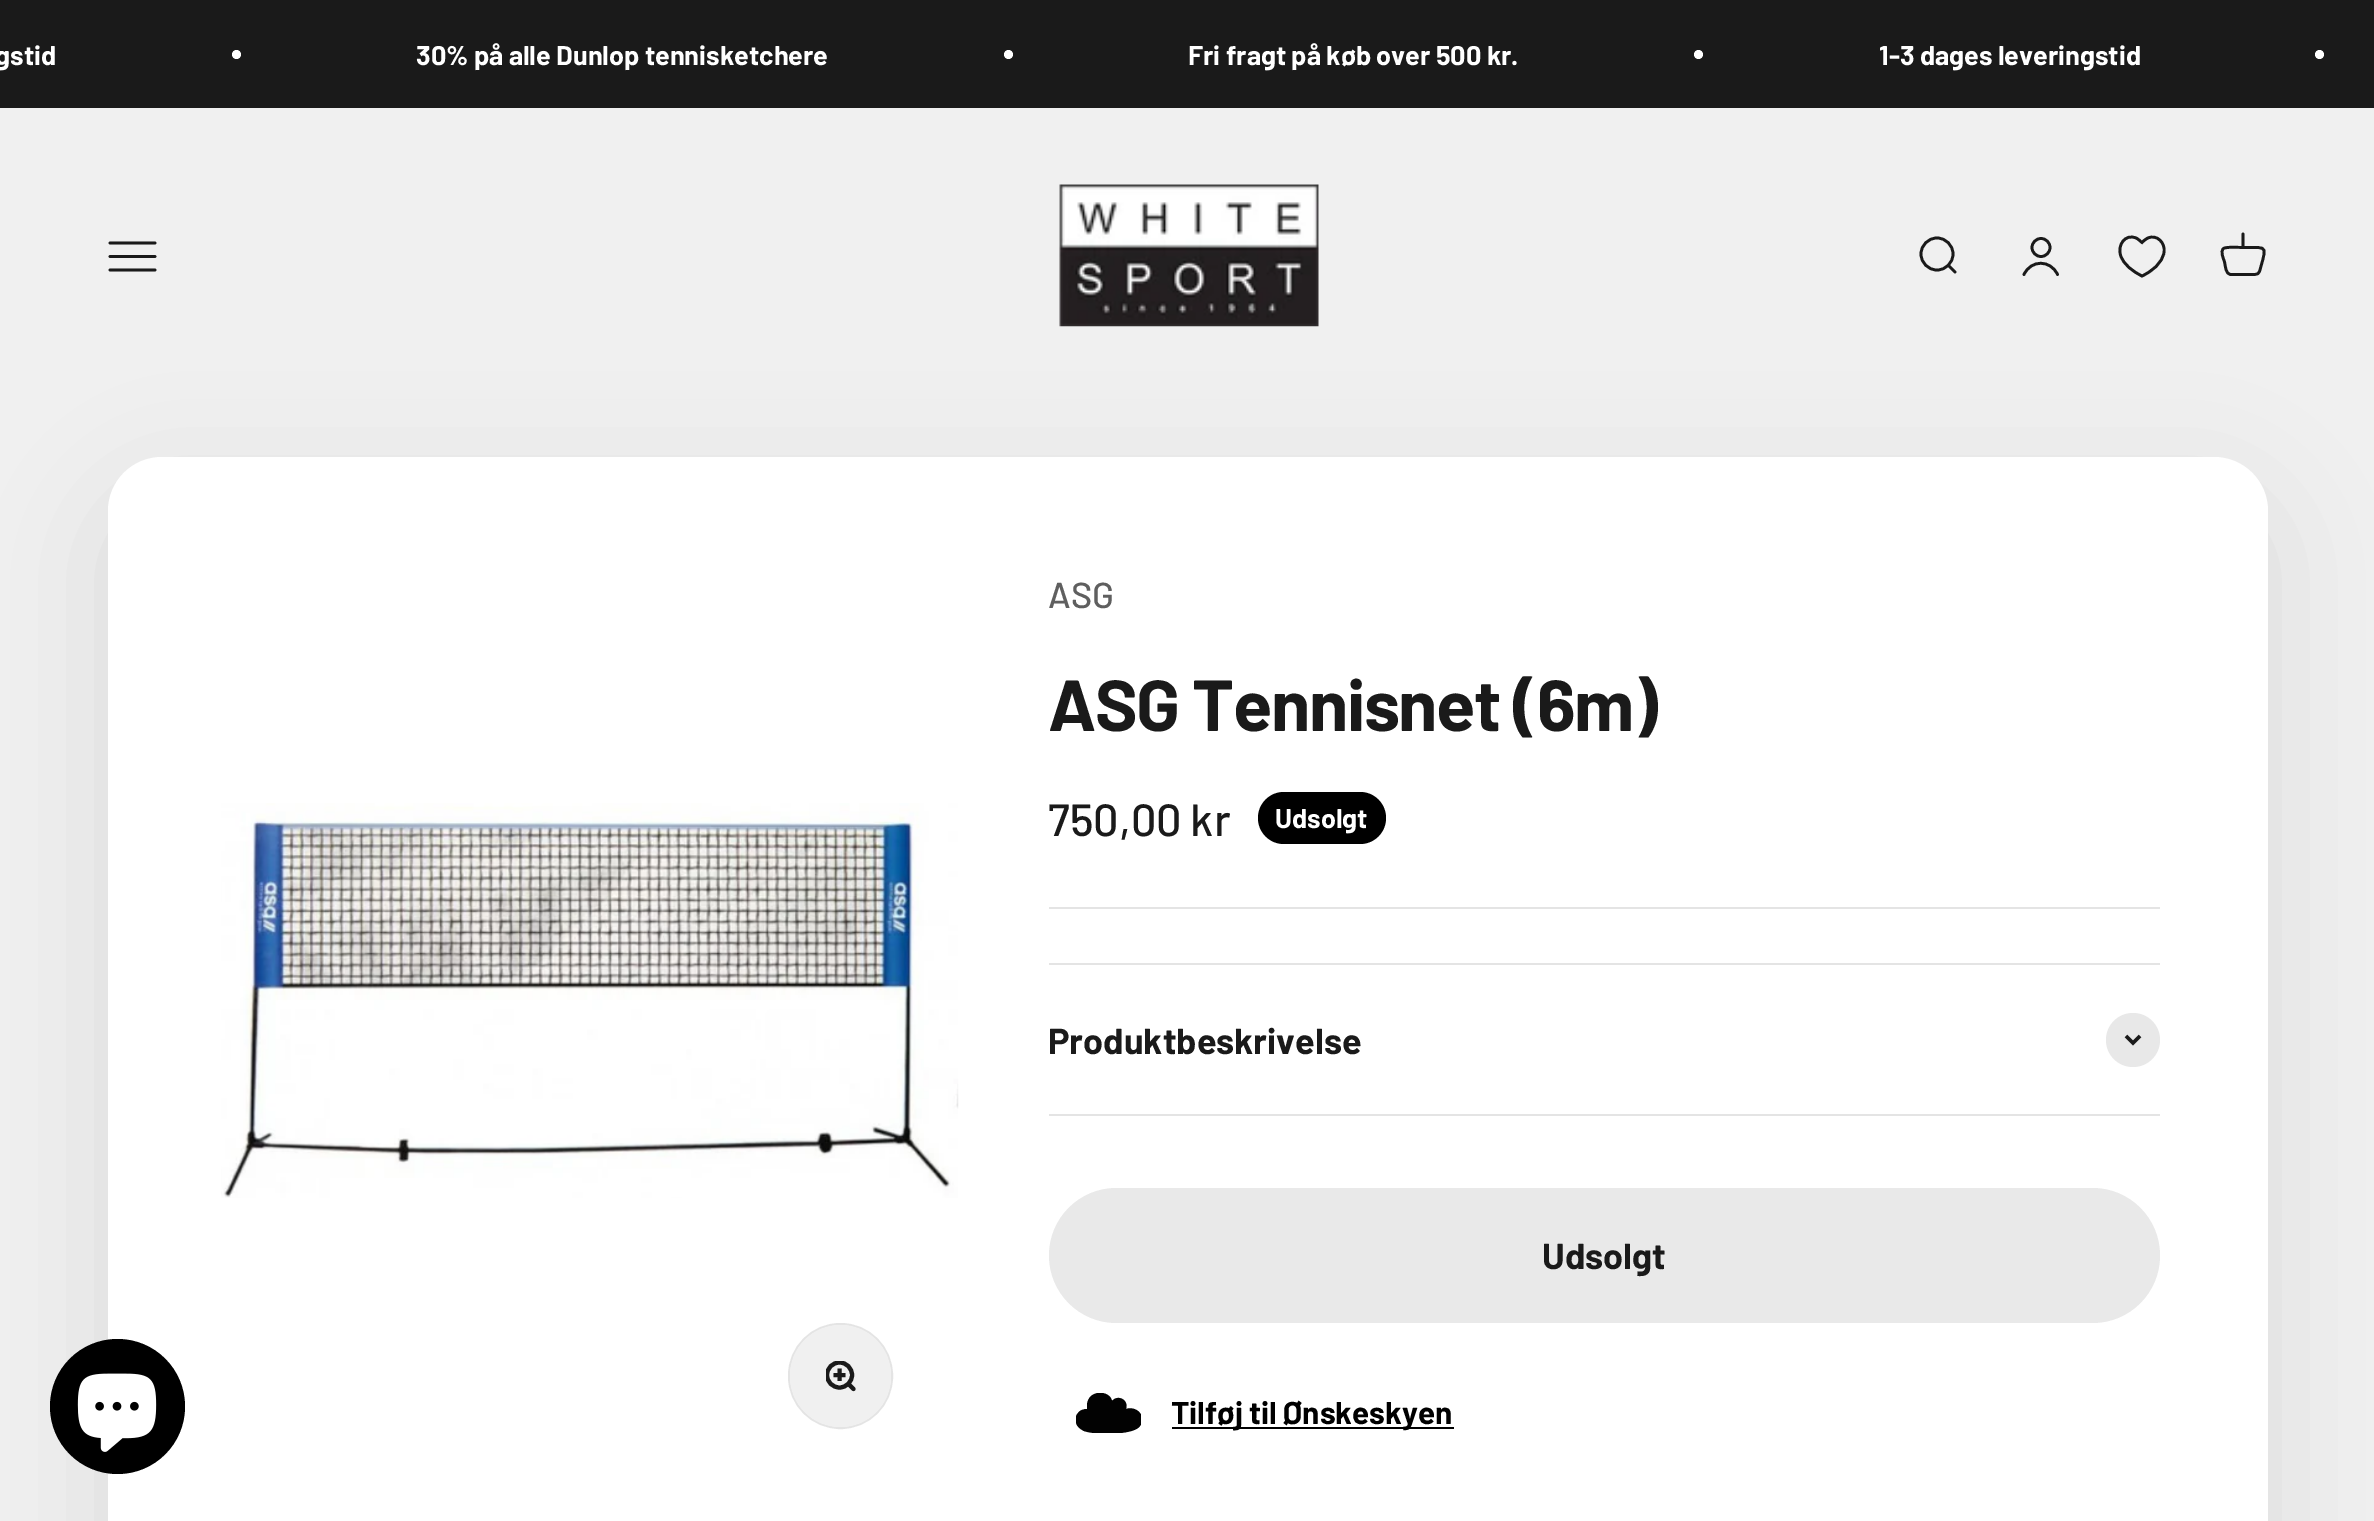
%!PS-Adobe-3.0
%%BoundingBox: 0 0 2374 1521
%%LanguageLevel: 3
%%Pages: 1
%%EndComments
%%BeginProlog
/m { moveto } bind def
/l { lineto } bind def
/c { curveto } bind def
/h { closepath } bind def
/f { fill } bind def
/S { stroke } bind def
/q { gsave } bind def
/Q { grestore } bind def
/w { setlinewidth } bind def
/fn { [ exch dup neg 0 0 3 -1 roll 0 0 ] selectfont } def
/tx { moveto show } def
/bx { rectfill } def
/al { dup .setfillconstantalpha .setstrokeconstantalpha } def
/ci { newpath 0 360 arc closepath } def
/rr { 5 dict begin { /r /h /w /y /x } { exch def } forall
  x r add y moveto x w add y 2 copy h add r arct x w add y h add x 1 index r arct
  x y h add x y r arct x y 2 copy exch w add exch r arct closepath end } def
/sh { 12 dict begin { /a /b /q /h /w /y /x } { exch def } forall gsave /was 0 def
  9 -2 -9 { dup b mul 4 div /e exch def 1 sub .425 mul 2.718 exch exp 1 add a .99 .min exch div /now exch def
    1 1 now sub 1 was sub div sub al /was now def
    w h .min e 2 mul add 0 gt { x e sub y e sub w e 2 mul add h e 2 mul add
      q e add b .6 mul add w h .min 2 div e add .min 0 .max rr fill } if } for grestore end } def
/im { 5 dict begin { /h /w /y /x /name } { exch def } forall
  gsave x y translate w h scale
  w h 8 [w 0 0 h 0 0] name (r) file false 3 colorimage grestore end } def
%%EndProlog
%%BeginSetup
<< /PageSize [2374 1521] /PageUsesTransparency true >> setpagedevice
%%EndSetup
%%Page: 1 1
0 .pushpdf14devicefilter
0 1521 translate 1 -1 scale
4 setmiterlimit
0.941 setgray
0 0 2374 1521 bx
0.102 setgray
0 0 2374 108 bx
/Barlow-Bold 27 fn
1 setgray
(gstid) -5 65 tx
236.5 54.5 4.5 ci f
(30% på alle Dunlop tennisketchere) 416 65 tx
1008.5 54.5 4.5 ci f
(Fri fragt på køb over 500 kr.) 1188 65 tx
1698.5 54.5 4.5 ci f
(1-3 dages leveringstid) 1879 65 tx
2319.5 54.5 4.5 ci f
0.102 setgray
2.7 w
1 setlinecap
110 243 m 155 243 l 110 256.5 m 155 256.5 l 110 270 m 155 270 l S
(image0.raw) 1059 184 260 143 im
0 setlinecap
1937 254 16 ci S
1 setlinecap
1 setlinejoin
1948.5 265.5 m 1955 272 l S
0 setlinecap
0 setlinejoin
2041 247.5 9 ci S
1 setlinecap
2024 274.5 m 2031 259.5 2050.5 259.5 2057.5 274.5 c S
0 setlinecap
2142 276 m 2133 271.5 2123.5 265 2120.5 255 c 2117.5 245 2125 233.5 2136 238 c 2138.5 239 2140 241 2142 242.5 c 2143.5 241 2145.5 239 2148 238 c 2157 234 2165.5 243 2164 252 c 2162.5 263.5 2151.5 271.5 2142 276 c h S
1 setlinecap
1 setlinejoin
2243 247.5 m 2239.5 247.5 2226.5 246.5 2223.5 248.5 c 2220 251.5 2223.5 258.5 2224.5 262 c 2225.5 266 2225.5 274.5 2231 274.5 c 2251.5 274.5 l 2258 274.5 2259 274.5 2260.5 268 c 2263 259 l 2264.5 251.5 2266.5 247.5 2257 247.5 c h 2243 247.5 m 2243 234 l S
108 497 2160 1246 54 56 0.1 sh
1 setgray
108 457 2160 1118 54 rr f
0 setgray
117.5 1406.5 67.5 ci f
(image1.raw) 77 1373 80 79 im
(image2.raw) 221 803 738 395 im
0.894 setgray
2 w
0 setlinecap
0 setlinejoin
789 1324 103 104 51.5 rr S
0.941 setgray
790 1325 101 102 50.5 rr f
q
826 1361 29 30 rectclip
0.102 setgray
4.1 w
839.5 1375 12.5 ci S
Q
0.102 setgray
4.1 w
1 setlinecap
1 setlinejoin
848.5 1384 m 853.5 1389 l S
0 setlinecap
0 setlinejoin
839.5 1368.5 m 839.5 1381 l 833.5 1375 m 845.5 1375 l S
/Barlow-Medium 36 fn
0.373 setgray
(ASG) 1048 608 tx
/Barlow-Bold 72 fn
0.102 setgray
1048 731 m -1.4 0 (ASG Tennisnet \(6m\)) ashow
/Barlow-Medium 45 fn
(750,00 kr) 1048 836 tx
0 setgray
1258 792 128 52 26 rr f
/Barlow-Bold 27 fn
1 setgray
(Udsolgt) 1275 828 tx
0.894 setgray
1049 907 1111 2 bx
1049 963 1111 2 bx
1049 1114 1111 2 bx
/Barlow-Bold 36 fn
0.102 setgray
(Produktbeskrivelse) 1048 1054 tx
0.91 setgray
2133 1040 27 ci f
0.102 setgray
3.4 w
2126 1036 m 2133 1043 l 2140 1036 l S
0.914 setgray
1049 1188 1111 135 67.5 rr f
0.102 setgray
(Udsolgt) 1542 1269 tx
q
1076 1393 65 40 rectclip
0.008 setgray
1138 1428 m 1129 1435 1095 1435 1084 1431 c 1080 1429 1076 1426 1076 1422 c 1075 1418 1076 1415 1078 1413 c 1080 1410 1084 1409 1087 1409 c 1087 1405 l 1088 1389 1110 1390 1112 1401 c 1118 1394 1129 1400 1126 1409 c 1139 1405 1148 1420 1138 1428 c h f
Q
0 setgray
1172 1427 282 2 bx
/Barlow-Bold 31.5 fn
(Tilføj til Ønskeskyen) 1171 1424 tx
.poppdf14devicefilter showpage
%%EOF
